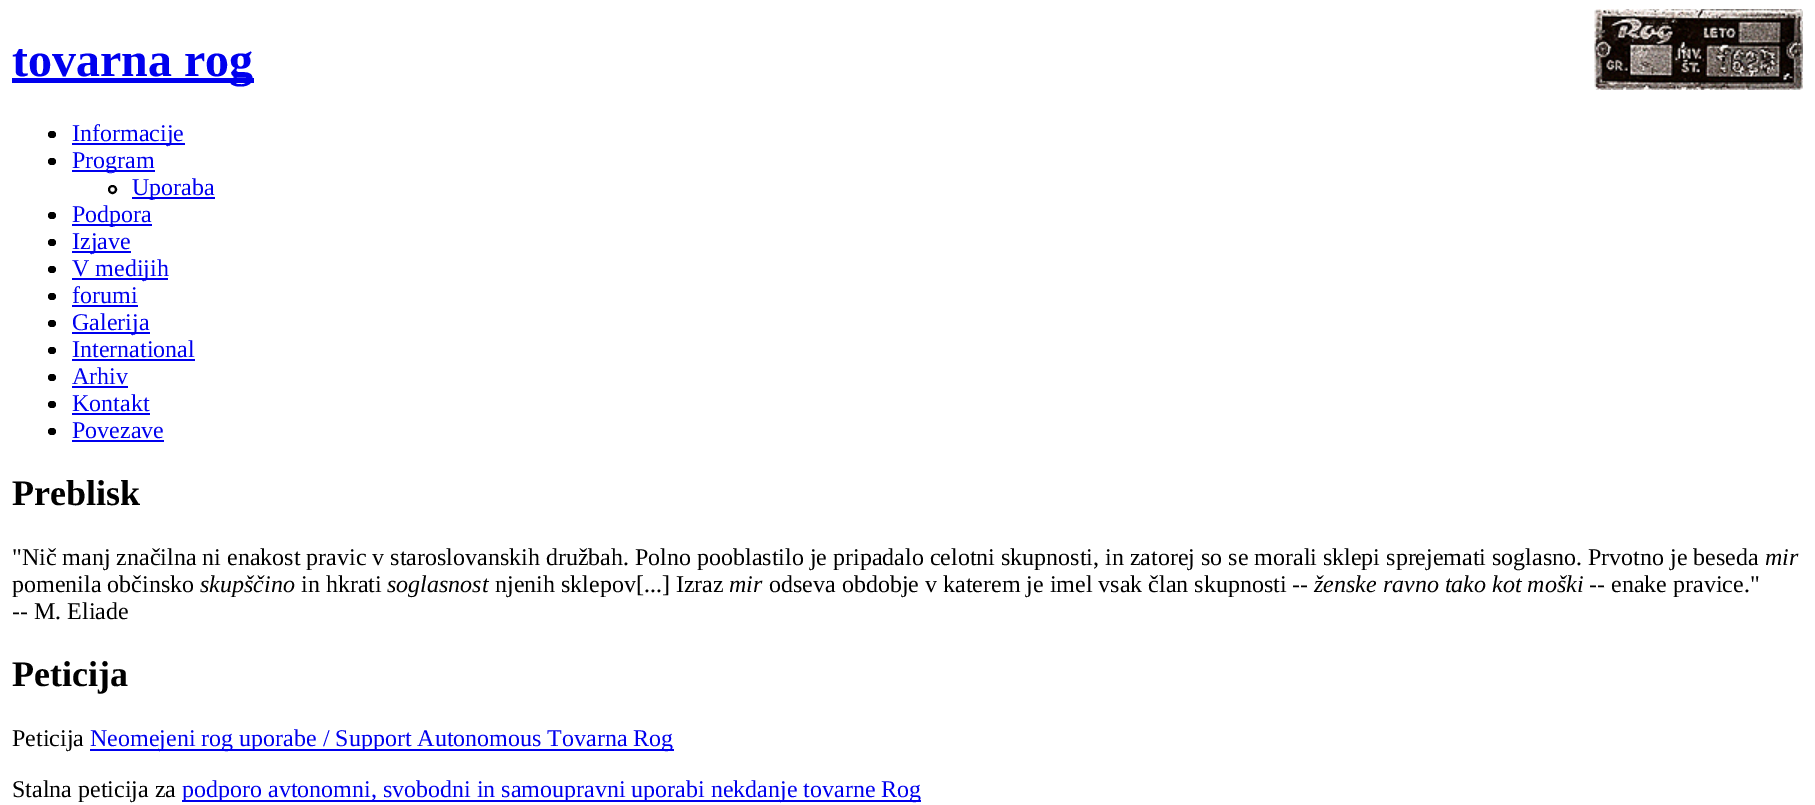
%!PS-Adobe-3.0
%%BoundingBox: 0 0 1815 805
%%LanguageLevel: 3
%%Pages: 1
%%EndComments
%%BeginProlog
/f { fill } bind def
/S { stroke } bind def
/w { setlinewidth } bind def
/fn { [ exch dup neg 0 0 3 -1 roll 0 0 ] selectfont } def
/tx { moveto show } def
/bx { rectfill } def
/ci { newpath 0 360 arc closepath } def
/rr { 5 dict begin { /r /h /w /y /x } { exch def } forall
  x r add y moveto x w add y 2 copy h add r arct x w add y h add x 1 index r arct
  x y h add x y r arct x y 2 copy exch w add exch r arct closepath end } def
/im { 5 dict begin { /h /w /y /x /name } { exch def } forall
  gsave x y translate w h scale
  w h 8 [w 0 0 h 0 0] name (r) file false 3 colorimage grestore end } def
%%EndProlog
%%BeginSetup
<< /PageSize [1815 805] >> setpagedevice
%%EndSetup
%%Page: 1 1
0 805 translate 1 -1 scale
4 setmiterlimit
1 setgray
0 0 1815 805 bx
0 0 0.933 setrgbcolor
12 78 242 5 bx
/LiberationSerif-Bold 48 fn
(tovarna rog) 12 76 tx
(image0.raw) 1594 9 209 81 im
0 setgray
48 131 8 7 3.5 rr f
0 0 0.933 setrgbcolor
72 143 113 2 bx
/LiberationSerif-Regular 24 fn
(Informacije) 72 141 tx
0 setgray
48 158 8 7 3.5 rr f
0 0 0.933 setrgbcolor
72 170 83 2 bx
(Program) 72 168 tx
0 setgray
2 w
112.5 189.5 3.5 ci S
0 0 0.933 setrgbcolor
132 197 83 2 bx
(Uporaba) 132 195 tx
0 setgray
48 212 8 7 3.5 rr f
0 0 0.933 setrgbcolor
72 224 80 2 bx
(Podpora) 72 222 tx
0 setgray
48 239 8 7 3.5 rr f
0 0 0.933 setrgbcolor
72 251 59 2 bx
(Izjave) 72 249 tx
0 setgray
48 266 8 7 3.5 rr f
0 0 0.933 setrgbcolor
72 278 96 2 bx
(V medijih) 72 276 tx
0 setgray
48 293 8 7 3.5 rr f
0 0 0.933 setrgbcolor
(forumi) 72 303 tx
72 305 66 2 bx
0 setgray
48 320 8 7 3.5 rr f
0 0 0.933 setrgbcolor
72 332 78 2 bx
(Galerija) 72 330 tx
0 setgray
48 347 8 7 3.5 rr f
0 0 0.933 setrgbcolor
(International) 72 357 tx
72 359 123 2 bx
0 setgray
48 374 8 7 3.5 rr f
0 0 0.933 setrgbcolor
(Arhiv) 72 384 tx
72 386 56 2 bx
0 setgray
48 401 8 7 3.5 rr f
0 0 0.933 setrgbcolor
(Kontakt) 72 411 tx
72 413 78 2 bx
0 setgray
48 428 8 7 3.5 rr f
0 0 0.933 setrgbcolor
(Povezave) 72 438 tx
72 440 92 2 bx
/LiberationSerif-Bold 36 fn
0 setgray
(Preblisk) 12 505 tx
/LiberationSerif-Regular 24 fn
("Nič manj značilna ni enakost pravic v staroslovanskih družbah. Polno pooblastilo je pripadalo celotni skupnosti, in zatorej so se morali sklepi sprejemati soglasno. Prvotno je beseda) 12 565 tx
/LiberationSerif-Italic 24 fn
(mir) 1765 565 tx
/LiberationSerif-Regular 24 fn
(pomenila občinsko) 12 592 tx
/LiberationSerif-Italic 24 fn
(skupščino) 200 592 tx
/LiberationSerif-Regular 24 fn
(in hkrati) 301 592 tx
/LiberationSerif-Italic 24 fn
(soglasnost) 387 592 tx
/LiberationSerif-Regular 24 fn
(njenih sklepov[...] Izraz) 495 592 tx
/LiberationSerif-Italic 24 fn
(mir) 729 592 tx
/LiberationSerif-Regular 24 fn
(odseva obdobje v katerem je imel vsak član skupnosti --) 769 592 tx
/LiberationSerif-Italic 24 fn
(ženske ravno tako kot moški) 1314 592 tx
/LiberationSerif-Regular 24 fn
(-- enake pravice.") 1589 592 tx
(-- M. Eliade) 12 619 tx
/LiberationSerif-Bold 36 fn
(Peticija) 12 686 tx
/LiberationSerif-Regular 24 fn
(Peticija) 12 746 tx
0 0 0.933 setrgbcolor
90 749 584 2 bx
(Neomejeni rog uporabe / Support Autonomous Tovarna Rog) 90 746 tx
0 setgray
(Stalna peticija za) 12 797 tx
0 0 0.933 setrgbcolor
182 800 739 2 bx
(podporo avtonomni, svobodni in samoupravni uporabi nekdanje tovarne Rog) 182 797 tx
showpage
%%EOF
